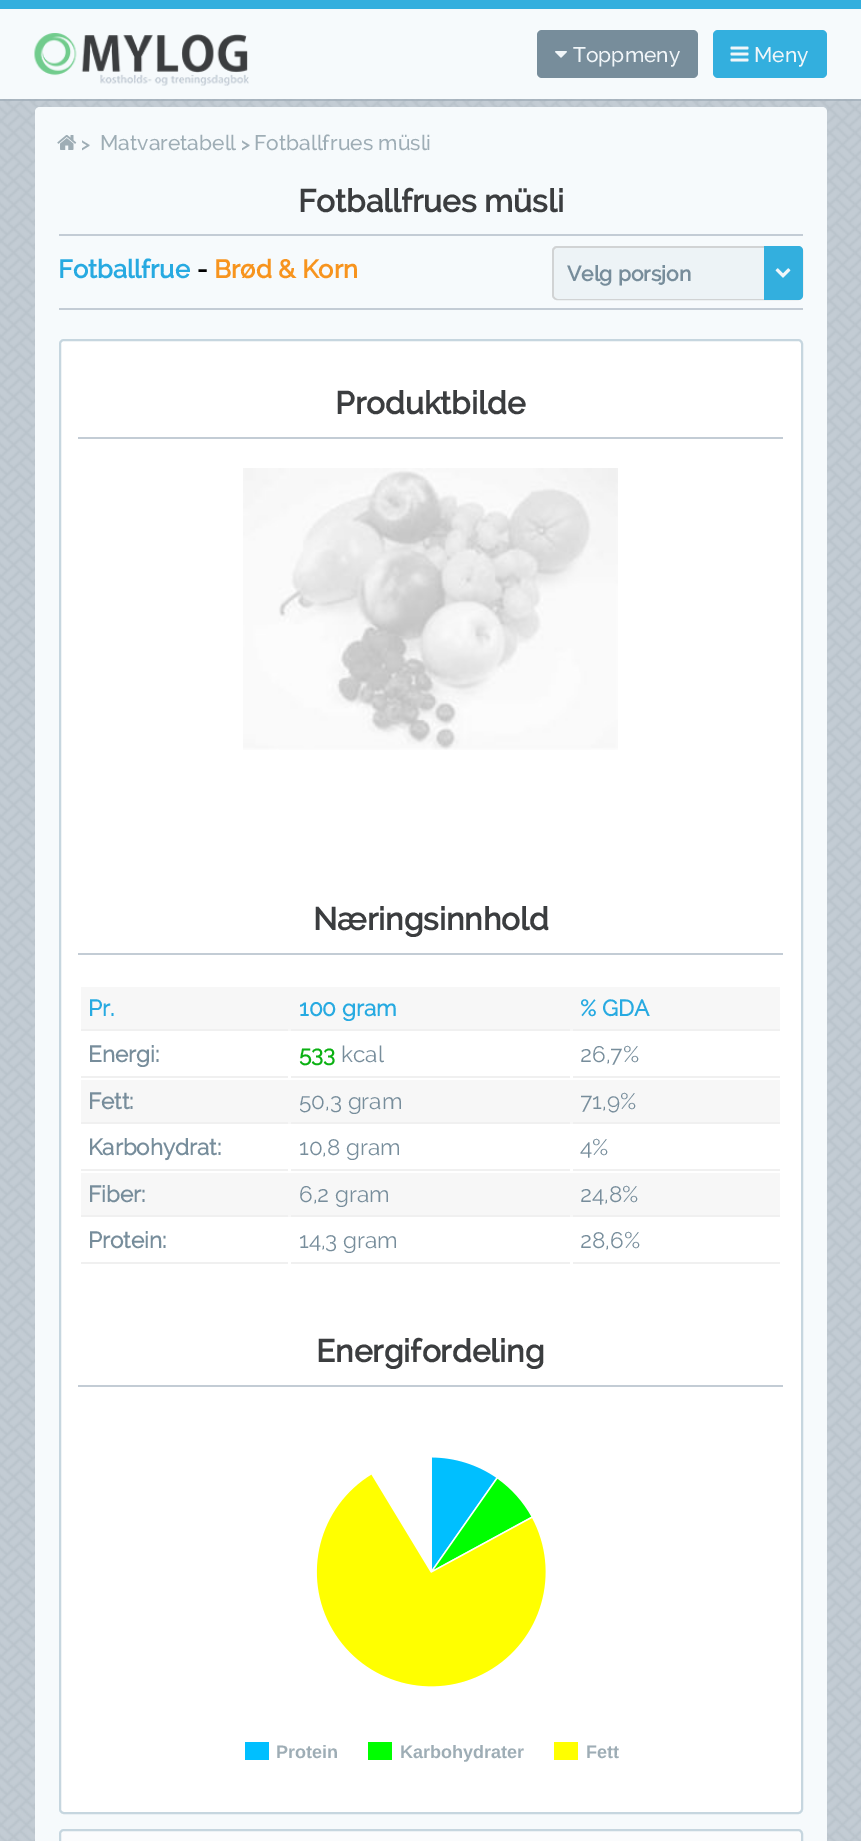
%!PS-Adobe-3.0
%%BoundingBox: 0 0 861 1841
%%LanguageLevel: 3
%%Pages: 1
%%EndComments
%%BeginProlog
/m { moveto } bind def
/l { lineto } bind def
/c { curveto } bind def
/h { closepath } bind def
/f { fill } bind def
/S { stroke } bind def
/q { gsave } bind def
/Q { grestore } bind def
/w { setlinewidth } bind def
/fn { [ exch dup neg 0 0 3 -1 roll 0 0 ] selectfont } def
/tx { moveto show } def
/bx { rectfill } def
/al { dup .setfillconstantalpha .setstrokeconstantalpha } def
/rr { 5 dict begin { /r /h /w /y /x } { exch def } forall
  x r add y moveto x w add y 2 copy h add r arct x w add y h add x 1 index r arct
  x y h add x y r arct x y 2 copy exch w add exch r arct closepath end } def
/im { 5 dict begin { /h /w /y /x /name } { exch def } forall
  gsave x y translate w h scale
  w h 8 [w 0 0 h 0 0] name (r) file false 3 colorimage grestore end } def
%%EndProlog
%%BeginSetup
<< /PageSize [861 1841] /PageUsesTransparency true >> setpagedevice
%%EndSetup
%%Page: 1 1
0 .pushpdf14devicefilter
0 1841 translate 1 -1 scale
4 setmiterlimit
1 setgray
0 0 861 1841 bx
(image0.raw) 0 99 861 1742 im
0.7 al
0.624 0.675 0.718 setrgbcolor
0 99 861 2 bx
1 al
0.965 0.98 0.988 setrgbcolor
0 9 861 90 bx
0.2 0.686 0.871 setrgbcolor
0 0 861 9 bx
(image1.raw) 34 33 215 53 im
0.467 0.553 0.608 setrgbcolor
537 30 161 48 5 rr f
(image2.raw) 555 51 12 7 im
/Raleway-Medium 21 fn
0.945 0.965 0.976 setrgbcolor
(Toppmeny) 573 62 tx
0.2 0.686 0.871 setrgbcolor
713 30 114 48 5 rr f
(image3.raw) 730 46 19 16 im
0.945 0.965 0.976 setrgbcolor
(Meny) 754 62 tx
0.965 0.98 0.988 setrgbcolor
40 107 m 822 107 l 825 107 827 109 827 112 c 827 159 l 35 159 l 35 112 l 35 109 37 107 40 107 c h f
(image4.raw) 57 135 20 15 im
/Raleway-Bold 17 fn
0.62 0.678 0.71 setrgbcolor
(>) 81 150 tx
/Raleway-Medium 21 fn
(Matvaretabell) 100 150 tx
/Raleway-Bold 17 fn
(>) 241 150 tx
/Raleway-Medium 21 fn
(Fotballfrues müsli) 254 150 tx
0.965 0.98 0.988 setrgbcolor
35 159 792 1682 bx
0.765 0.8 0.835 setrgbcolor
59 234 744 2 bx
/Raleway-Bold 31.5 fn
0.231 0.239 0.247 setrgbcolor
(Fotballfrues müsli) 298 212 tx
/Raleway-Bold 25.5 fn
0.153 0.667 0.882 setrgbcolor
(Fotballfrue) 58 278 tx
0 setgray
(-) 197 278 tx
0.969 0.58 0.118 setrgbcolor
(Brød & Korn) 214 278 tx
0.82 0.827 0.831 setrgbcolor
2 w
553 247 249 52 4 rr S
0.929 0.953 0.965 setrgbcolor
554 248 247 51 5 rr f
/Raleway-Bold 21 fn
0.467 0.553 0.608 setrgbcolor
(Velg porsjon) 567 281 tx
0.2 0.686 0.871 setrgbcolor
764 246 m 798 246 l 801 246 803 248 803 251 c 803 295 l 803 298 801 300 798 300 c 764 300 l h f
(image5.raw) 775 268 16 10 im
0.765 0.8 0.835 setrgbcolor
59 308 744 2 bx
1 setgray
60 340 742 1473 4 rr q f Q
0.776 0.839 0.875 setrgbcolor
S
0.765 0.8 0.835 setrgbcolor
78 437 705 2 bx
/Raleway-Bold 31.5 fn
0.231 0.239 0.247 setrgbcolor
(Produktbilde) 335 414 tx
(image6.raw) 243 468 375 282 im
0.765 0.8 0.835 setrgbcolor
78 953 705 2 bx
0.231 0.239 0.247 setrgbcolor
(Næringsinnhold) 313 930 tx
0.969 setgray
81 987 699 44 bx
0.941 setgray
81 1029 207 2 bx
/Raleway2-Bold 22.5 fn
0.153 0.667 0.882 setrgbcolor
(Pr.) 88 1016 tx
0.941 setgray
291 1029 279 2 bx
0.153 0.667 0.882 setrgbcolor
(100 gram) 299 1016 tx
0.941 setgray
573 1029 207 2 bx
0.153 0.667 0.882 setrgbcolor
(% GDA) 580 1016 tx
0.941 setgray
81 1076 207 2 bx
0.467 0.553 0.608 setrgbcolor
(Energi:) 88 1062 tx
0.941 setgray
291 1076 279 2 bx
0.043 0.694 0.075 setrgbcolor
(533) 299 1062 tx
/Raleway-Regular 22.5 fn
0.467 0.553 0.608 setrgbcolor
(kcal) 341 1062 tx
0.941 setgray
573 1076 207 2 bx
0.467 0.553 0.608 setrgbcolor
(26,7%) 580 1062 tx
0.969 setgray
81 1080 699 44 bx
0.941 setgray
81 1122 207 2 bx
/Raleway2-Bold 22.5 fn
0.467 0.553 0.608 setrgbcolor
(Fett:) 88 1109 tx
0.941 setgray
291 1122 279 2 bx
/Raleway-Regular 22.5 fn
0.467 0.553 0.608 setrgbcolor
(50,3 gram) 299 1109 tx
0.941 setgray
573 1122 207 2 bx
0.467 0.553 0.608 setrgbcolor
(71,9%) 580 1109 tx
0.941 setgray
81 1169 207 2 bx
/Raleway2-Bold 22.5 fn
0.467 0.553 0.608 setrgbcolor
(Karbohydrat:) 88 1155 tx
0.941 setgray
291 1169 279 2 bx
/Raleway-Regular 22.5 fn
0.467 0.553 0.608 setrgbcolor
(10,8 gram) 299 1155 tx
0.941 setgray
573 1169 207 2 bx
0.467 0.553 0.608 setrgbcolor
(4%) 580 1155 tx
0.969 setgray
81 1173 699 44 bx
0.941 setgray
81 1215 207 2 bx
/Raleway2-Bold 22.5 fn
0.467 0.553 0.608 setrgbcolor
(Fiber:) 88 1202 tx
0.941 setgray
291 1215 279 2 bx
/Raleway-Regular 22.5 fn
0.467 0.553 0.608 setrgbcolor
(6,2 gram) 299 1202 tx
0.941 setgray
573 1215 207 2 bx
0.467 0.553 0.608 setrgbcolor
(24,8%) 580 1202 tx
0.941 setgray
81 1262 207 2 bx
/Raleway2-Bold 22.5 fn
0.467 0.553 0.608 setrgbcolor
(Protein:) 88 1248 tx
0.941 setgray
291 1262 279 2 bx
/Raleway-Regular 22.5 fn
0.467 0.553 0.608 setrgbcolor
(14,3 gram) 299 1248 tx
0.941 setgray
573 1262 207 2 bx
0.467 0.553 0.608 setrgbcolor
(28,6%) 580 1248 tx
0.765 0.8 0.835 setrgbcolor
78 1385 705 2 bx
/Raleway-Bold 31.5 fn
0.231 0.239 0.247 setrgbcolor
(Energifordeling) 316 1362 tx
(image7.raw) 245 1457 333 303 im
/LiberationSans-Bold 18 fn
0.62 0.678 0.71 setrgbcolor
(Protein) 276 1758 tx
(Karbohydrater) 400 1758 tx
(Fett) 586 1758 tx
0.984 0.988 0.992 setrgbcolor
60 1830 742 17 4 rr q f Q
0.776 0.839 0.875 setrgbcolor
S
.poppdf14devicefilter showpage
%%EOF
